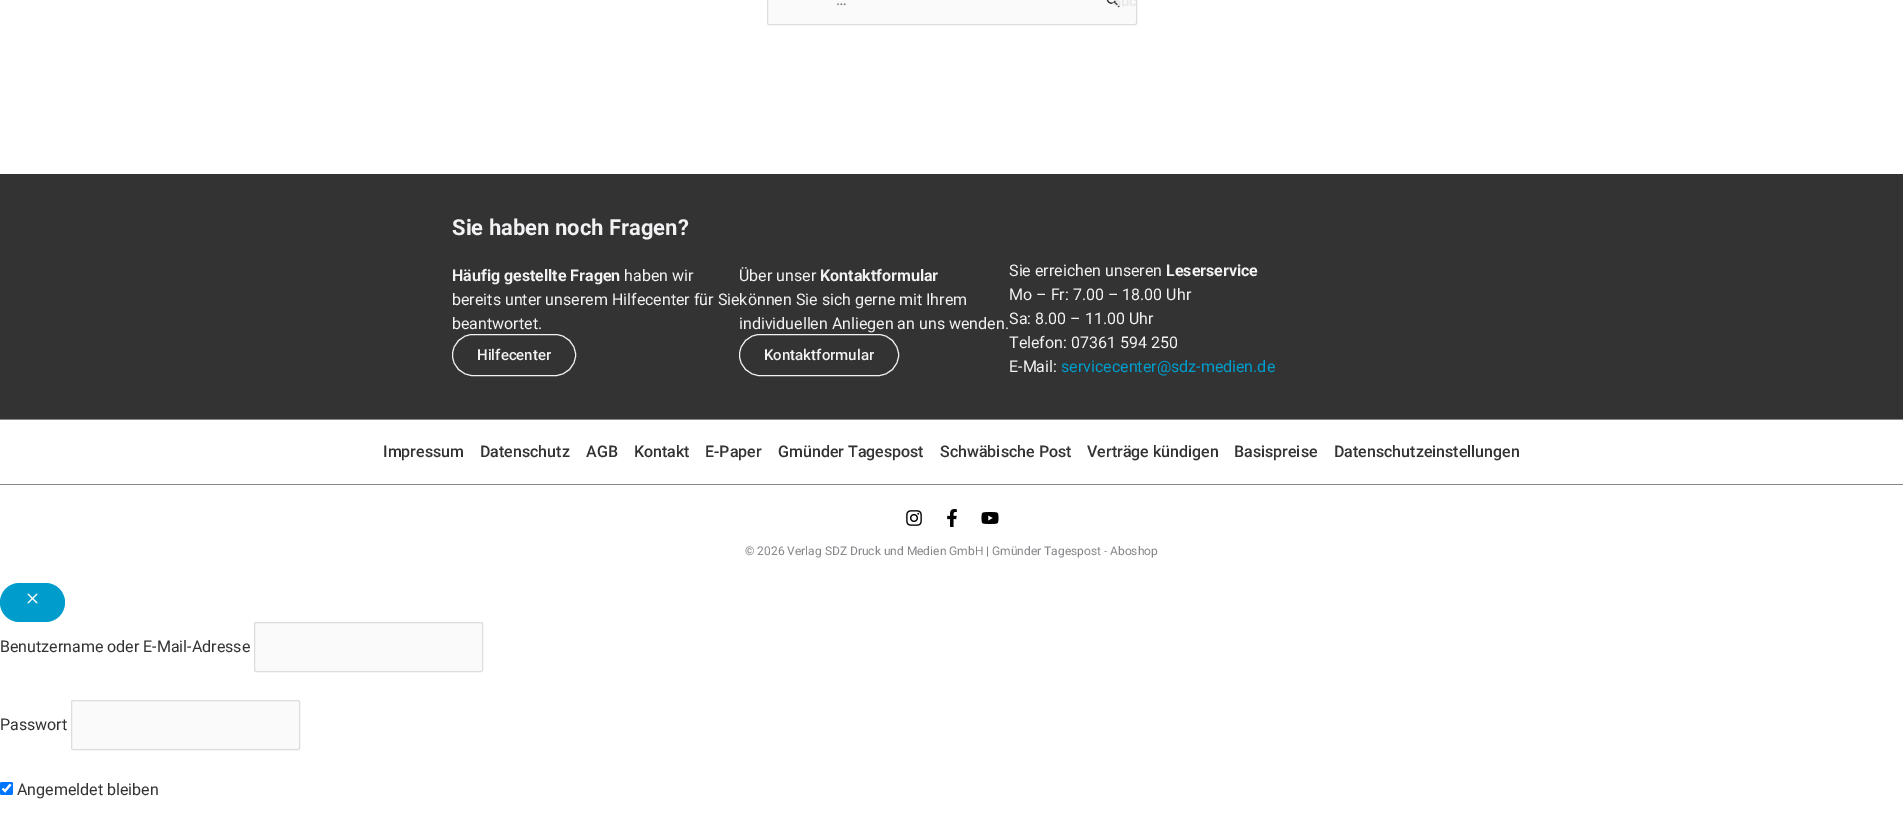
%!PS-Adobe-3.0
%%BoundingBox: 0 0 1903 827
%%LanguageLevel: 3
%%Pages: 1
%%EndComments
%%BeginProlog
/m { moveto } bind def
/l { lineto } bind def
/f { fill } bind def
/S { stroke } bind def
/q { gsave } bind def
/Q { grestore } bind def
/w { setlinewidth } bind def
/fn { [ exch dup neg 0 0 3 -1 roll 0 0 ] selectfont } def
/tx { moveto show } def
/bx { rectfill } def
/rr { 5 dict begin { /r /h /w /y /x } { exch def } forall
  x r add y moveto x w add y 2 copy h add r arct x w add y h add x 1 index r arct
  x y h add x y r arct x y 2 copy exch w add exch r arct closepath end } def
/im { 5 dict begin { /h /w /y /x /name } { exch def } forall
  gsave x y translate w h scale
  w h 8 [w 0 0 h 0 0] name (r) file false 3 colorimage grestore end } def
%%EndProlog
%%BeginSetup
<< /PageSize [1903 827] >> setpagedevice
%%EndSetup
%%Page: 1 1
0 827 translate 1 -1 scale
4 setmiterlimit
1 setgray
0 0 1903 827 bx
0.98 setgray
767.5 -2.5 369 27 1.5 rr q f Q
0.867 setgray
S
/Roboto-Regular 16 fn
0.459 setgray
(…) 836 5 tx
(image0.raw) 1106 0 14 8 im
/Roboto-Medium 15 fn
0.91 setgray
(Suc) 1112 6 tx
0.2 setgray
0 174 1903 245 bx
/Roboto-Bold 22 fn
0.949 0.949 0.957 setrgbcolor
(Sie haben noch Fragen?) 452 235 tx
/Roboto-Regular 16 fn
(Über unser) 739 281 tx
/Roboto-Bold 16 fn
(Kontaktformular) 820 281 tx
/Roboto-Regular 16 fn
(individuellen Anliegen an uns wenden.) 739 329 tx
739.5 334.5 159 41 20.5 rr S
/Roboto-Medium 15 fn
(Kontaktformular) 764 360 tx
/Roboto-Regular 16 fn
(Sie erreichen unseren) 1009 276 tx
/Roboto-Bold 16 fn
(Leserservice) 1166 276 tx
/Roboto-Regular 16 fn
(Mo – Fr: 7.00 – 18.00 Uhr) 1009 300 tx
(Sa: 8.00 – 11.00 Uhr) 1009 324 tx
(Telefon: 07361 594 250) 1009 348 tx
(E‑Mail:) 1009 372 tx
0 0.616 0.8 setrgbcolor
(servicecenter@sdz-medien.de) 1061 372 tx
/Roboto-Bold 16 fn
0.949 0.949 0.957 setrgbcolor
(Häufig gestellte Fragen) 452 281 tx
/Roboto-Regular 16 fn
(haben wir) 624 281 tx
(bereits unter unserem Hilfecenter für Siekönnen Sie sich gerne mit Ihrem) 452 305 tx
(beantwortet.) 452 329 tx
452.5 334.5 123 41 20.5 rr S
/Roboto-Medium 15 fn
(Hilfecenter) 477 360 tx
0.525 0.525 0.545 setrgbcolor
0 419 1903 1 bx
/Roboto-Medium 16 fn
0.2 setgray
(Impressum) 383 457 tx
(Datenschutz) 480 457 tx
(AGB) 586 457 tx
(Kontakt) 634 457 tx
(E-Paper) 705 457 tx
(Gmünder Tagespost) 778 457 tx
(Schwäbische Post) 940 457 tx
(Verträge kündigen) 1087 457 tx
(Basispreise) 1234 457 tx
(Datenschutzeinstellungen) 1334 457 tx
0.525 0.525 0.545 setrgbcolor
0 484 1903 1 bx
(image1.raw) 906 510 16 16 im
(image2.raw) 947 509 10 18 im
(image3.raw) 981 512 18 12 im
/Roboto-Regular 12 fn
(© 2026 Verlag SDZ Druck und Medien GmbH | Gmünder Tagespost - Aboshop) 745 555 tx
0 0.616 0.8 setrgbcolor
0 583 65 39 19.5 rr f
(image4.raw) 27 593 11 11 im
/Roboto-Regular 16 fn
0.2 setgray
(Benutzername oder E-Mail-Adresse) 0 652 tx
0.98 setgray
254.5 622.5 228 49 1.5 rr q f Q
0.867 setgray
S
0.2 setgray
(Passwort) 0 730 tx
0.98 setgray
71.5 700.5 228 49 1.5 rr q f Q
0.867 setgray
S
0 0.459 1 setrgbcolor
0 782 13 13 2 rr f
1 setgray
2.1 w
2.5 788.5 m 5 791 l 10.5 784.5 l S
0.2 setgray
(Angemeldet bleiben) 17 795 tx
showpage
%%EOF
